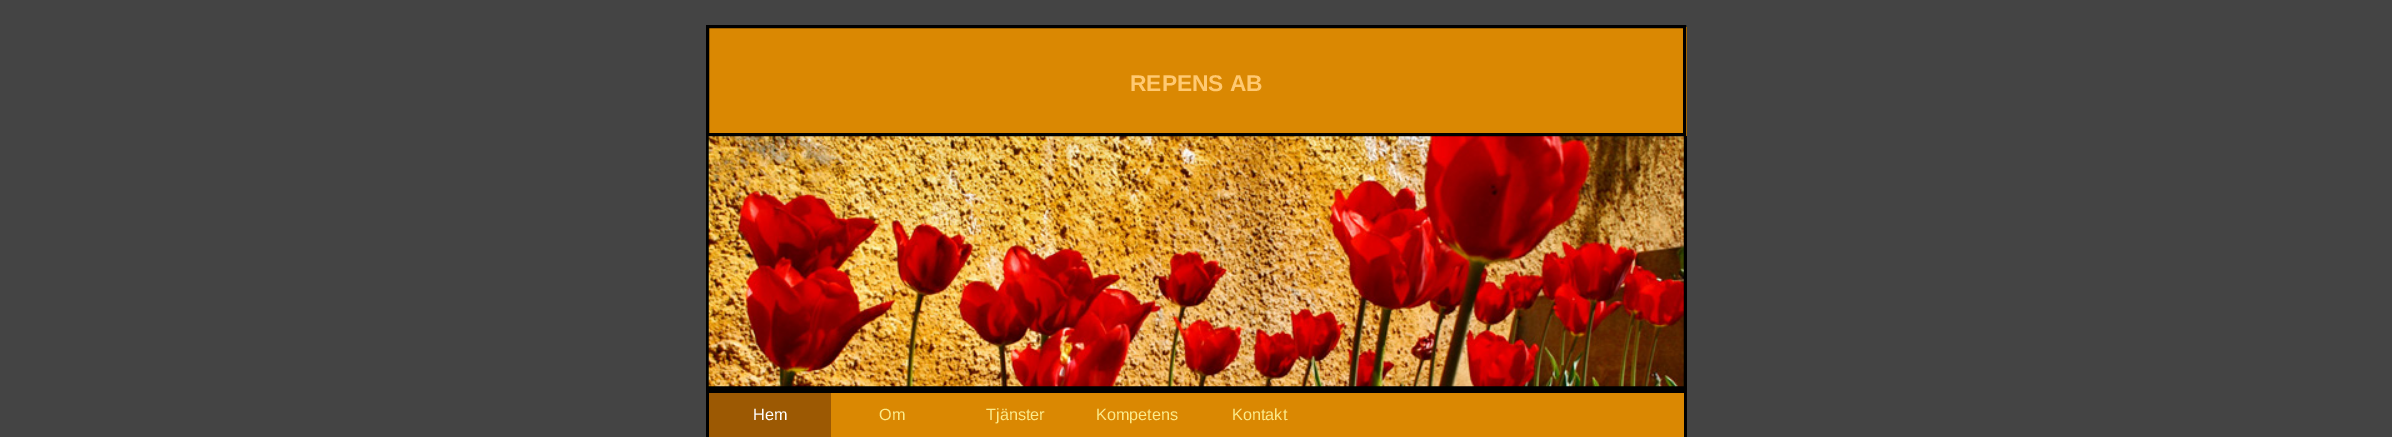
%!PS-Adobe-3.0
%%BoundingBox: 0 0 2392 437
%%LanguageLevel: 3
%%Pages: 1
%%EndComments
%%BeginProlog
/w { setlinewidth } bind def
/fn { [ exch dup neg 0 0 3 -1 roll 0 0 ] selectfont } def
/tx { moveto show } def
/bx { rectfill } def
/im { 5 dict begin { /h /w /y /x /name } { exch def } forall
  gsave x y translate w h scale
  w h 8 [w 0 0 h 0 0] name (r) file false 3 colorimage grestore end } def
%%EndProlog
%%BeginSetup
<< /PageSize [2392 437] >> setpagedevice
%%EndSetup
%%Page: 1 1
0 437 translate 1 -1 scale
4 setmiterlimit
0.267 setgray
0 0 2392 437 bx
0.855 0.533 0.008 setrgbcolor
709 27 978 109 bx
0 setgray
3 w
707.5 26.5 977 108 rectstroke
/LiberationSans-Bold 22.75 fn
1 0.788 0.443 setrgbcolor
(REPENS AB) 1130 91 tx
0 setgray
706 136 981 254 bx
(image0.raw) 708 136 976 251 im
0.855 0.533 0.008 setrgbcolor
831 393 853 44 bx
0 setgray
706 390 980 3 bx
1684 390 3 47 bx
706 390 3 47 bx
0.612 0.349 0.012 setrgbcolor
709 393 122 44 bx
/LiberationSans-Regular 16.25 fn
1 setgray
(Hem) 753 420 tx
0.988 0.922 0.541 setrgbcolor
(Om) 879 420 tx
(Tjänster) 986 420 tx
(Kompetens) 1096 420 tx
(Kontakt) 1232 420 tx
showpage
%%EOF
